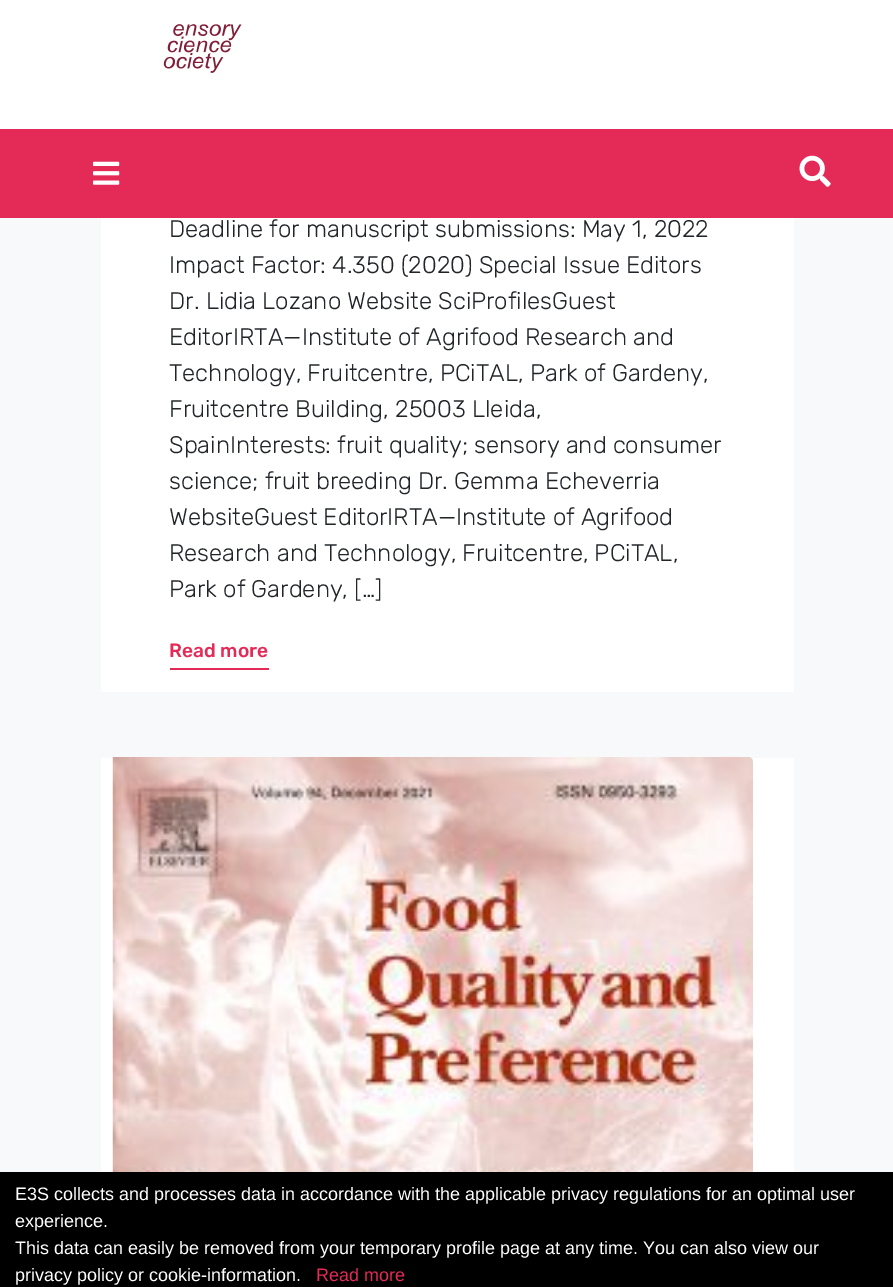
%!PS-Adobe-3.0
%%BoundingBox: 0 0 893 1287
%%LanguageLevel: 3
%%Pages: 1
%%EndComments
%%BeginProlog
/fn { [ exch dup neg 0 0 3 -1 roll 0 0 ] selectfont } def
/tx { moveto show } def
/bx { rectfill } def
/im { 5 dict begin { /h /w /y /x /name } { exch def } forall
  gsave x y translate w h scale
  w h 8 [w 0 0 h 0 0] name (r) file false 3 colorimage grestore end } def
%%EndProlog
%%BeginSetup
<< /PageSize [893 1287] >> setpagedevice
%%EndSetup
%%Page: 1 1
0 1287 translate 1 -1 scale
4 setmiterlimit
0.973 0.976 0.98 setrgbcolor
0 0 893 1287 bx
1 setgray
0 0 893 129 bx
(image0.raw) 163 24 79 49 im
0.894 0.165 0.341 setrgbcolor
0 129 893 89 bx
(image1.raw) 93 161 27 24 im
(image2.raw) 799 155 32 32 im
1 setgray
101 218 693 474 bx
/Rubik-Light 24 fn
0.129 0.145 0.161 setrgbcolor
(Deadline for manuscript submissions: May 1, 2022) 169 237 tx
(Impact Factor: 4.350 \(2020\) Special Issue Editors) 169 273 tx
(Dr. Lidia Lozano Website SciProfilesGuest) 169 309 tx
(EditorIRTA—Institute of Agrifood Research and) 169 345 tx
(Technology, Fruitcentre, PCiTAL, Park of Gardeny,) 169 381 tx
(Fruitcentre Building, 25003 Lleida,) 169 417 tx
(SpainInterests: fruit quality; sensory and consumer) 169 453 tx
(science; fruit breeding Dr. Gemma Echeverria) 169 489 tx
(WebsiteGuest EditorIRTA—Institute of Agrifood) 169 525 tx
(Research and Technology, Fruitcentre, PCiTAL,) 169 561 tx
(Park of Gardeny, […]) 169 597 tx
/Rubik-Medium 19.25 fn
0.894 0.165 0.341 setrgbcolor
(Read more) 169 657 tx
170 668 99 2 bx
1 setgray
101 758 693 414 bx
(image3.raw) 112 757 641 415 im
0 setgray
0 1172 893 115 bx
/LiberationSans-Regular 18 fn
1 setgray
(E3S collects and processes data in accordance with the applicable privacy regulations for an optimal user) 15 1200 tx
(experience.) 15 1227 tx
(This data can easily be removed from your temporary profile page at any time. You can also view our) 15 1254 tx
(privacy policy or cookie-information.) 15 1281 tx
0.894 0.165 0.341 setrgbcolor
(Read more) 316 1281 tx
showpage
%%EOF
